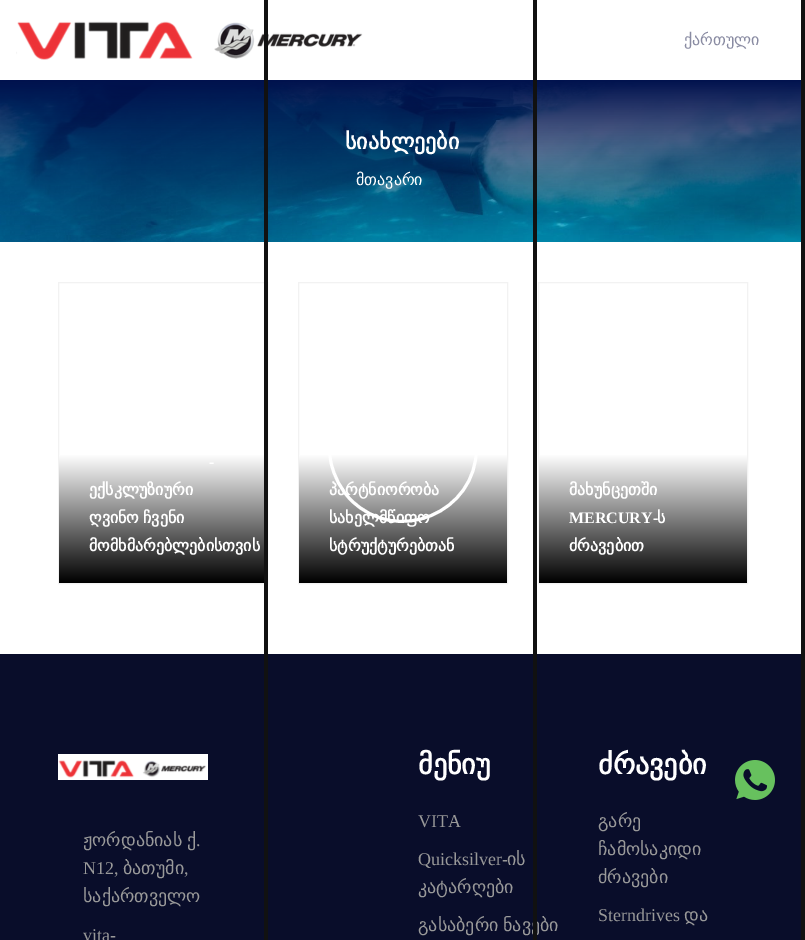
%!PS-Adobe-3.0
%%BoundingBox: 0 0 805 940
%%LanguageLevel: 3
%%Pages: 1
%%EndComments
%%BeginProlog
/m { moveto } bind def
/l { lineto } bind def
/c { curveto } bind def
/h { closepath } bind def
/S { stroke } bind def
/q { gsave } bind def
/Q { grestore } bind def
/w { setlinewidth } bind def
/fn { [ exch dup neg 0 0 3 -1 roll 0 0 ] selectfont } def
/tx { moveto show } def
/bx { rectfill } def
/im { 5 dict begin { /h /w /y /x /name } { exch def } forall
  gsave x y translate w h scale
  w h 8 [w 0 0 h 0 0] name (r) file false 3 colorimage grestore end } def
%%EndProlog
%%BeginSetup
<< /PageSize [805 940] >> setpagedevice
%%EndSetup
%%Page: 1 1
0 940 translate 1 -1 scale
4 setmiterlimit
1 setgray
0 0 805 940 bx
(image0.raw) 16 21 347 39 im
(image1.raw) 0 80 801 162 im
0.949 setgray
58.5 282.5 209 301 rectstroke
0.035 0.051 0.165 setrgbcolor
0 654 801 286 bx
0.067 setgray
264 0 4 940 bx
0.949 setgray
298.5 282.5 209 301 rectstroke
q 299 455 m 507 455 l 507 583 l 299 583 l h clip newpath
<< /ShadingType 2 /ColorSpace /DeviceRGB /Coords [403 283 403 583] /Extend [true true] /Function << /FunctionType 3 /Domain [0 1] /Functions [<< /FunctionType 2 /Domain [0 1] /C0 [1 1 1] /C1 [1 1 1] /N 1 >> << /FunctionType 2 /Domain [0 1] /C0 [1 1 1] /C1 [0.529 0.529 0.529] /N 1 >> << /FunctionType 2 /Domain [0 1] /C0 [0.529 0.529 0.529] /C1 [0 0 0] /N 1 >>] /Bounds [0.57 0.77] /Encode [0 1 0 1 0 1] >> >> shfill Q
1 setgray
3 w
455 396 m 468.5 409.5 476.5 428.5 476.5 448 c 476.5 513 397 546 351 500 c 341 490 334 476.5 331 462.5 c 326 438.5 334 413.5 351 396 c S
/DejaVuSans-Regular 18 fn
0.6 setgray
418 931 m -1 0 32 (გასაბერი ნავები) widthshow
0.067 setgray
533 0 4 940 bx
801 0 4 940 bx
/DejaVuSans-Regular 16 fn
0.537 0.545 0.635 setrgbcolor
(ქართული) 684 45 tx
/DejaVuSans-Bold 22 fn
1 setgray
(სიახლეები) 345 149 tx
/DejaVuSans-Regular 16 fn
(მთავარი) 356 185 tx
q 59 455 m 264 455 l 264 583 l 59 583 l h clip newpath
<< /ShadingType 2 /ColorSpace /DeviceRGB /Coords [163 283 163 583] /Extend [true true] /Function << /FunctionType 3 /Domain [0 1] /Functions [<< /FunctionType 2 /Domain [0 1] /C0 [1 1 1] /C1 [1 1 1] /N 1 >> << /FunctionType 2 /Domain [0 1] /C0 [1 1 1] /C1 [0.529 0.529 0.529] /N 1 >> << /FunctionType 2 /Domain [0 1] /C0 [0.529 0.529 0.529] /C1 [0 0 0] /N 1 >>] /Bounds [0.57 0.77] /Encode [0 1 0 1 0 1] >> >> shfill Q
/LiberationSerif-Bold 16 fn
(-) 209 467 tx
/DejaVuSans-Bold 16 fn
(ექსკლუზიური) 89 495 tx
89 523 m -1 0 32 (ღვინო ჩვენი) widthshow
(მომხმარებლებისთვის) 89 551 tx
(პარტნიორობა) 329 495 tx
(სახელმწიფო) 329 523 tx
(სტრუქტურებთან) 329 551 tx
0.949 setgray
1 w
538.5 282.5 209 301 rectstroke
q 539 455 m 747 455 l 747 583 l 539 583 l h clip newpath
<< /ShadingType 2 /ColorSpace /DeviceRGB /Coords [643 283 643 583] /Extend [true true] /Function << /FunctionType 3 /Domain [0 1] /Functions [<< /FunctionType 2 /Domain [0 1] /C0 [1 1 1] /C1 [1 1 1] /N 1 >> << /FunctionType 2 /Domain [0 1] /C0 [1 1 1] /C1 [0.529 0.529 0.529] /N 1 >> << /FunctionType 2 /Domain [0 1] /C0 [0.529 0.529 0.529] /C1 [0 0 0] /N 1 >>] /Bounds [0.57 0.77] /Encode [0 1 0 1 0 1] >> >> shfill Q
1 setgray
(მახუნცეთში) 569 495 tx
/LiberationSerif-Bold 16 fn
(MERCURY-) 569 523 tx
/DejaVuSans-Bold 16 fn
(ს) 657 523 tx
(ძრავებით) 569 551 tx
58 754 150 26 bx
(image2.raw) 58 760 148 18 im
/DejaVuSans-Regular 18 fn
0.6 setgray
83 846 m -1 0 32 (ჟორდანიას ქ) widthshow
/LiberationSerif-Regular 18 fn
(.) 196 846 tx
(N12,) 83 874 tx
/DejaVuSans-Regular 18 fn
(ბათუმი) 123 874 tx
/LiberationSerif-Regular 18 fn
(,) 184 874 tx
/DejaVuSans-Regular 18 fn
(საქართველო) 83 902 tx
/LiberationSerif-Regular 18 fn
(vita-) 83 941 tx
/DejaVuSans-Bold 28 fn
1 setgray
(მენიუ) 418 774 tx
/LiberationSerif-Regular 18 fn
0.6 setgray
(VITA) 418 827 tx
(Quicksilver-) 418 865 tx
/DejaVuSans-Regular 18 fn
(ის) 507 865 tx
(კატარღები) 418 893 tx
/DejaVuSans-Bold 28 fn
1 setgray
(ძრავები) 598 774 tx
/DejaVuSans-Regular 18 fn
0.6 setgray
(გარე) 598 827 tx
(ჩამოსაკიდი) 598 855 tx
(ძრავები) 598 883 tx
/LiberationSerif-Regular 18 fn
(Sterndrives) 598 921 tx
/DejaVuSans-Regular 18 fn
(და) 684 921 tx
(image3.raw) 735 760 40 40 im
showpage
%%EOF
